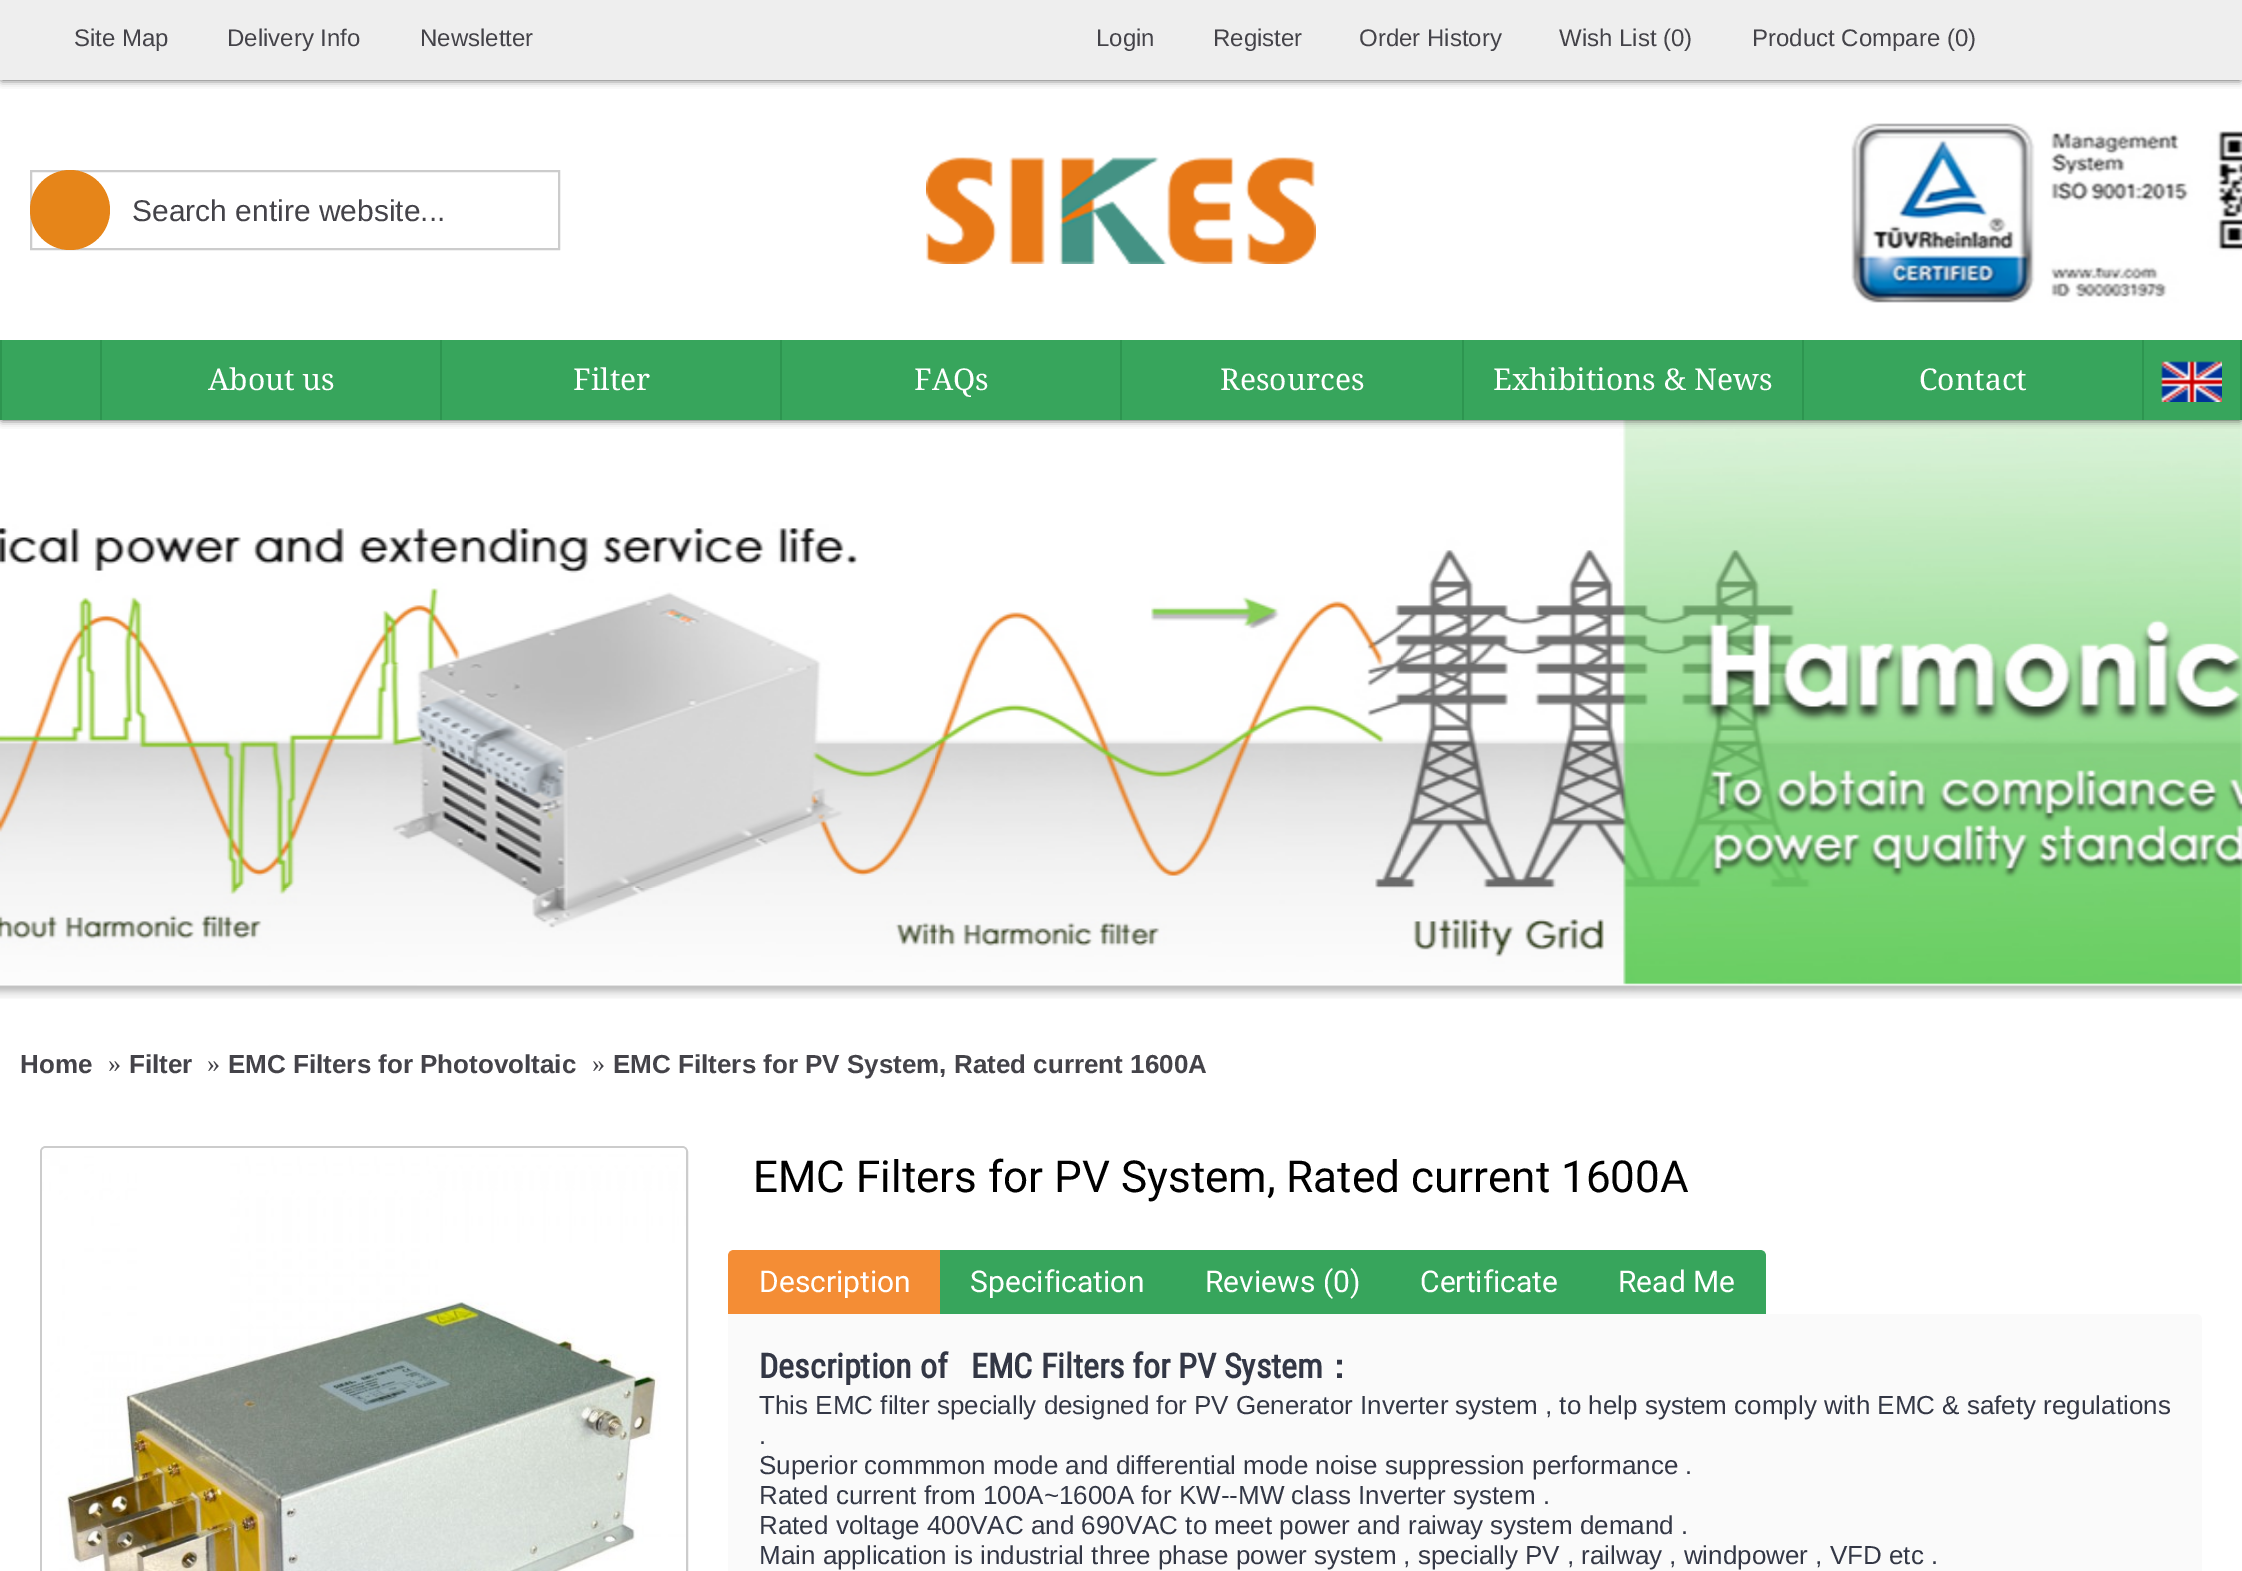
%!PS-Adobe-3.0
%%BoundingBox: 0 0 2242 1571
%%LanguageLevel: 3
%%Pages: 1
%%EndComments
%%BeginProlog
/m { moveto } bind def
/l { lineto } bind def
/c { curveto } bind def
/h { closepath } bind def
/f { fill } bind def
/S { stroke } bind def
/w { setlinewidth } bind def
/fn { [ exch dup neg 0 0 3 -1 roll 0 0 ] selectfont } def
/tx { moveto show } def
/bx { rectfill } def
/al { dup .setfillconstantalpha .setstrokeconstantalpha } def
/ci { newpath 0 360 arc closepath } def
/rr { 5 dict begin { /r /h /w /y /x } { exch def } forall
  x r add y moveto x w add y 2 copy h add r arct x w add y h add x 1 index r arct
  x y h add x y r arct x y 2 copy exch w add exch r arct closepath end } def
/sh { 12 dict begin { /a /b /q /h /w /y /x } { exch def } forall gsave /was 0 def
  9 -2 -9 { dup b mul 4 div /e exch def 1 sub .425 mul 2.718 exch exp 1 add a .99 .min exch div /now exch def
    1 1 now sub 1 was sub div sub al /was now def
    w h .min e 2 mul add 0 gt { x e sub y e sub w e 2 mul add h e 2 mul add
      q e add b .6 mul add w h .min 2 div e add .min 0 .max rr fill } if } for grestore end } def
/im { 5 dict begin { /h /w /y /x /name } { exch def } forall
  gsave x y translate w h scale
  w h 8 [w 0 0 h 0 0] name (r) file false 3 colorimage grestore end } def
%%EndProlog
%%BeginSetup
<< /PageSize [2242 1571] /PageUsesTransparency true >> setpagedevice
%%EndSetup
%%Page: 1 1
0 .pushpdf14devicefilter
0 1571 translate 1 -1 scale
4 setmiterlimit
1 setgray
0 0 2242 1571 bx
(image3.raw) 0 420 2242 579 im
0 setgray
2 4 2238 416 0 4 0.7 sh
1 setgray
0 80 2242 260 bx
0 setgray
2 4 2238 76 0 4 0.7 sh
0.933 setgray
0 0 2242 80 bx
/LiberationSans-Regular 24 fn
0.267 0.263 0.286 setrgbcolor
(Site Map) 74 46 tx
(Delivery Info) 227 46 tx
(Newsletter) 420 46 tx
(Login) 1096 46 tx
(Register) 1213 46 tx
(Order History) 1359 46 tx
(Wish List \(0\)) 1559 46 tx
(Product Compare \(0\)) 1752 46 tx
0.8 setgray
2 w
31 171 528 78 rectstroke
0.902 0.522 0.098 setrgbcolor
70 210 40 ci f
/LiberationSans-Regular 30 fn
0.267 0.263 0.286 setrgbcolor
(Search entire website...) 132 221 tx
(image0.raw) 926 157 390 107 im
0.176 0.584 0.314 setrgbcolor
0 340 2 80 bx
0.216 0.647 0.361 setrgbcolor
2 340 2238 80 bx
0.176 0.584 0.314 setrgbcolor
100 340 2 80 bx
/DroidSerif-Regular 30 fn
1 setgray
(About us) 208 390 tx
0.176 0.584 0.314 setrgbcolor
440 340 2 80 bx
1 setgray
(Filter) 573 390 tx
0.176 0.584 0.314 setrgbcolor
780 340 2 80 bx
1 setgray
(FAQs) 914 390 tx
0.176 0.584 0.314 setrgbcolor
1120 340 2 80 bx
1 setgray
(Resources) 1220 390 tx
0.176 0.584 0.314 setrgbcolor
1462 340 2 80 bx
1 setgray
(Exhibitions & News) 1493 390 tx
0.176 0.584 0.314 setrgbcolor
1802 340 2 80 bx
1 setgray
(Contact) 1919 390 tx
0.176 0.584 0.314 setrgbcolor
2240 340 2 80 bx
2142 340 2 80 bx
(image1.raw) 2161 361 61 41 im
(image2.raw) 1851 123 391 180 im
/LiberationSans-Bold 26 fn
0.267 0.263 0.286 setrgbcolor
(Home) 20 1073 tx
/LiberationSerif-Regular 26 fn
(») 108 1072 tx
/LiberationSans-Bold 26 fn
(Filter) 129 1073 tx
/LiberationSerif-Regular 26 fn
(») 207 1072 tx
/LiberationSans-Bold 26 fn
(EMC Filters for Photovoltaic) 228 1073 tx
/LiberationSerif-Regular 26 fn
(») 592 1072 tx
/LiberationSans-Bold 26 fn
(EMC Filters for PV System, Rated current 1600A) 613 1073 tx
0.8 setgray
41 1147 646 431 5 rr S
(image4.raw) 42 1148 644 423 im
/Roboto-Regular 44 fn
0 setgray
(EMC Filters for PV System, Rated current 1600A) 753 1192 tx
0.957 0.553 0.208 setrgbcolor
734 1250 m 940 1250 l 940 1314 l 728 1314 l 728 1256 l 728 1252.5 730.5 1250 734 1250 c h f
/Roboto-Regular 30 fn
1 setgray
(Description) 759 1292 tx
0.216 0.647 0.361 setrgbcolor
940 1250 648 64 bx
1 setgray
(Specification) 970 1292 tx
(Reviews \(0\)) 1205 1292 tx
(Certificate) 1420 1292 tx
0.216 0.647 0.361 setrgbcolor
1588 1250 m 1760 1250 l 1763.5 1250 1766 1252.5 1766 1256 c 1766 1314 l 1588 1314 l h f
1 setgray
(Read Me) 1618 1292 tx
0.98 setgray
728 1314 m 2196 1314 l 2199.5 1314 2202 1316.5 2202 1320 c 2202 1571 l 2202 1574.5 2199.5 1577 2196 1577 c 734 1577 l 730.5 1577 728 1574.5 728 1571 c h f
/RobotoCondensed-Bold 34 fn
0.2 0.216 0.271 setrgbcolor
(Description of   EMC Filters for PV System) 759 1378 tx
/WenQuanYiZenHei-Bold 34 fn
(：) 1322 1378 tx
/LiberationSans-Regular 26 fn
(This EMC filter specially designed for PV Generator Inverter system , to help system comply with EMC & safety regulations) 759 1414 tx
(.) 759 1444 tx
(Superior commmon mode and differential mode noise suppression performance .) 759 1474 tx
(Rated current from 100A~1600A for KW--MW class Inverter system .) 759 1504 tx
(Rated voltage 400VAC and 690VAC to meet power and raiway system demand .) 759 1534 tx
(Main application is industrial three phase power system , specially PV , railway , windpower , VFD etc .) 759 1564 tx
.poppdf14devicefilter showpage
%%EOF
